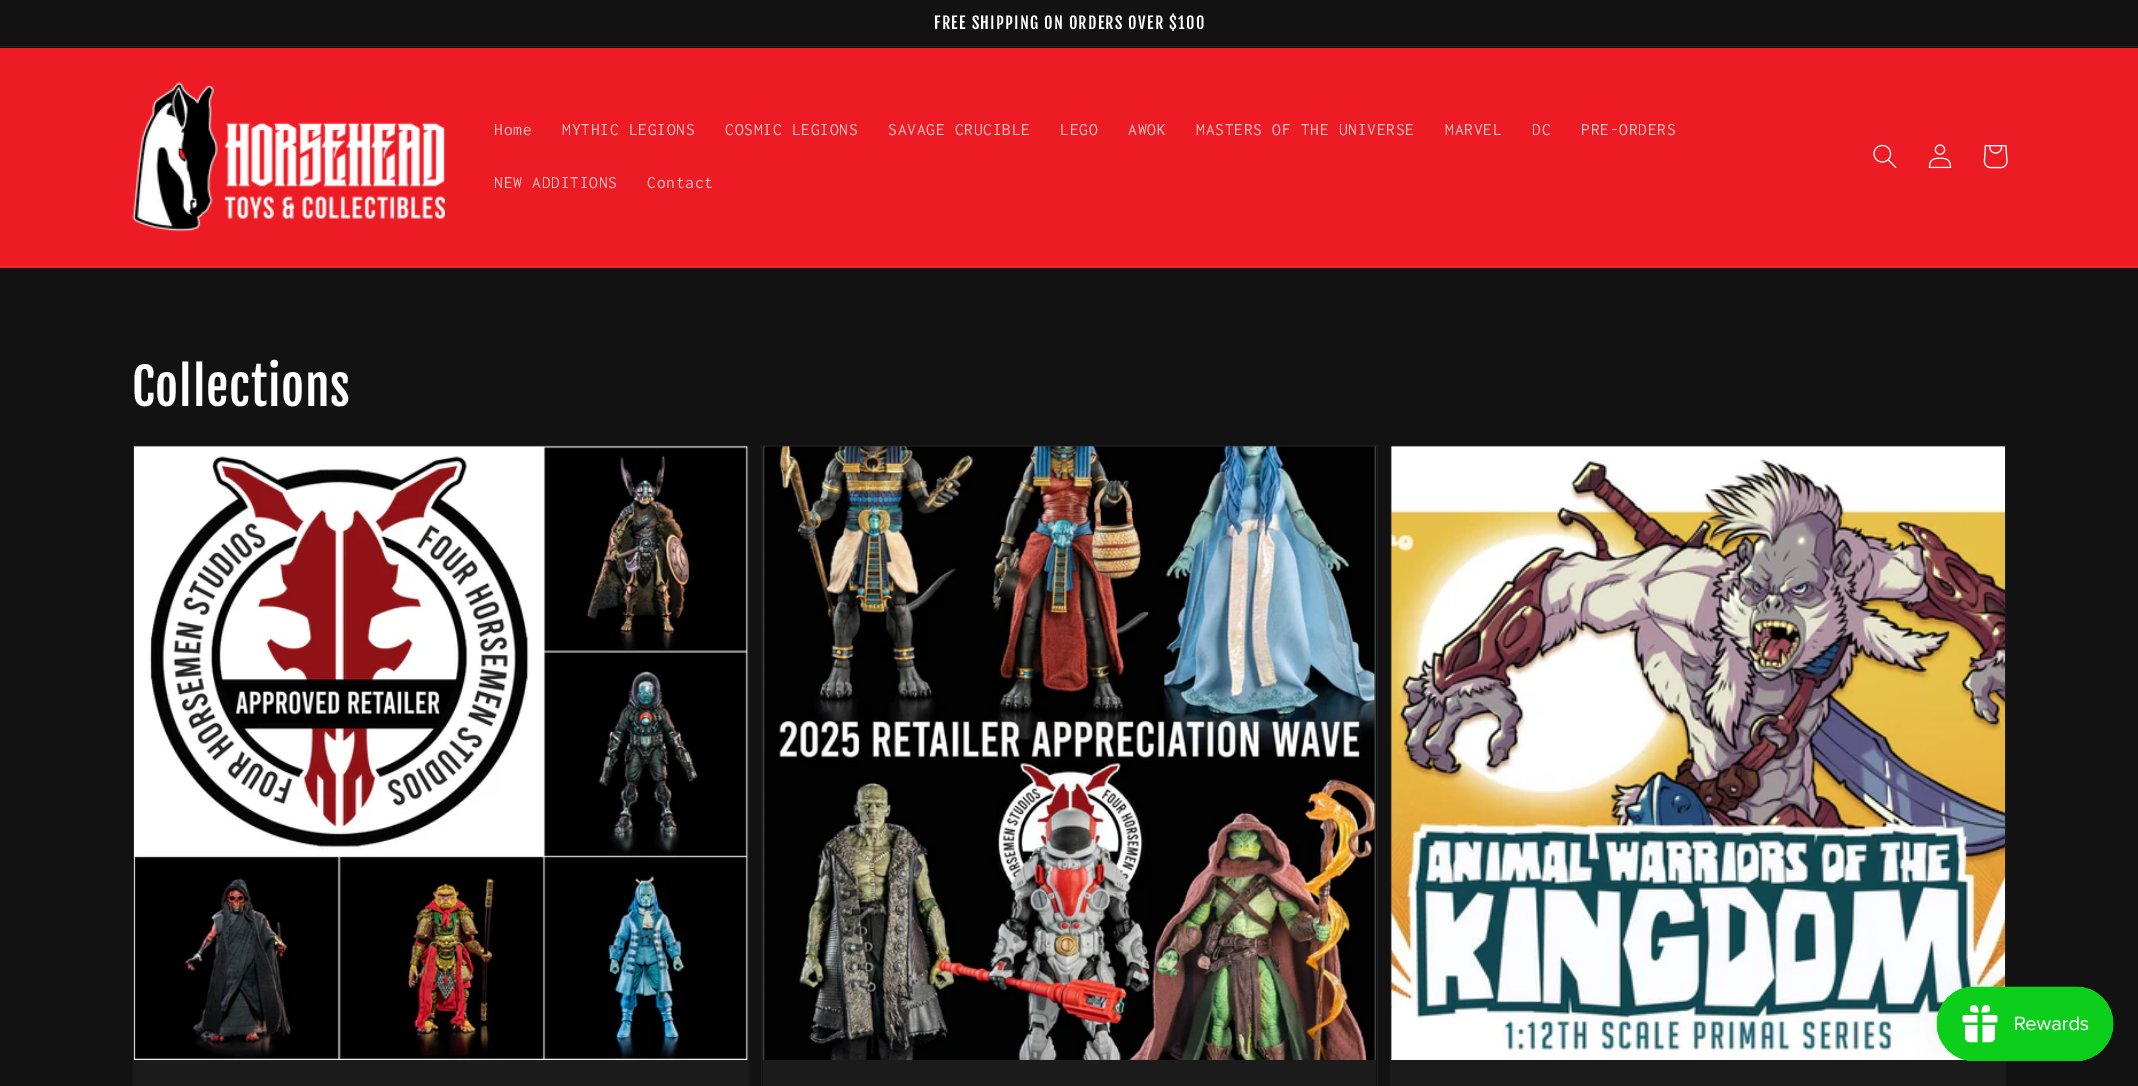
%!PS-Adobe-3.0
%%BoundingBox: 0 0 2138 1086
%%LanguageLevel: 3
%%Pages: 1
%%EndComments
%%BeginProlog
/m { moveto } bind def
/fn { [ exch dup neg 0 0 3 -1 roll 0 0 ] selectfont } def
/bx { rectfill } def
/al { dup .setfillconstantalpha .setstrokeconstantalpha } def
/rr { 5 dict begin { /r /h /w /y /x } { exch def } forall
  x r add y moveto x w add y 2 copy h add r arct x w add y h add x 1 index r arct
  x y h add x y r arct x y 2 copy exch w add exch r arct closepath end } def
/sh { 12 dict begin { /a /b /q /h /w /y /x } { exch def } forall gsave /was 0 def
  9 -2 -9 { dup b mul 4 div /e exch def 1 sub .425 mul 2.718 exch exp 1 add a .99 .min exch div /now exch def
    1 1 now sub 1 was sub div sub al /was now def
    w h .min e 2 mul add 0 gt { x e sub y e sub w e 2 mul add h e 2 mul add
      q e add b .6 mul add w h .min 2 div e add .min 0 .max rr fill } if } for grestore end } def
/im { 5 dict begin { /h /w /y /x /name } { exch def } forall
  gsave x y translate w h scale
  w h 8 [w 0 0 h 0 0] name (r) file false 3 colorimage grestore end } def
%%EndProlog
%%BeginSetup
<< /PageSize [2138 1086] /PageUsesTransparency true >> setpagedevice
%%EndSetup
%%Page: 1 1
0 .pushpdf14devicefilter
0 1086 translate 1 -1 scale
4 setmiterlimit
0.071 setgray
0 0 2138 1086 bx
0.145 setgray
0 46 2138 1 bx
/FjallaOne-Regular 16.25 fn
1 setgray
934 29 m 1.25 0 (FREE SHIPPING ON ORDERS OVER $100) ashow
0.929 0.106 0.141 setrgbcolor
0 48 2138 220 bx
0.933 0.176 0.212 setrgbcolor
0 266 2138 1 bx
(image0.raw) 132 82 313 150 im
/Inconsolata-Regular 17.5 fn
0.984 0.776 0.784 setrgbcolor
494 135 m 0.75 0 (Home) ashow
562 135 m 0.75 0 (MYTHIC LEGIONS) ashow
725 135 m 0.75 0 (COSMIC LEGIONS) ashow
888 135 m 0.75 0 (SAVAGE CRUCIBLE) ashow
1060 135 m 0.75 0 (LEGO) ashow
1128 135 m 0.75 0 (AWOK) ashow
1196 135 m 0.75 0 (MASTERS OF THE UNIVERSE) ashow
1445 135 m 0.75 0 (MARVEL) ashow
1532 135 m 0.75 0 (DC) ashow
1581 135 m 0.75 0 (PRE-ORDERS) ashow
494 188 m 0.75 0 (NEW ADDITIONS) ashow
647 188 m 0.75 0 (Contact) ashow
(image1.raw) 1873 144 24 24 im
(image2.raw) 1928 144 24 25 im
(image3.raw) 1983 145 25 24 im
/FjallaOne-Regular 50 fn
1 setgray
132 406 m 0.75 0 (Collections) ashow
0.106 setgray
133.5 445.5 615 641 rectstroke
134 1060 614 26 bx
0.196 setgray
134 446 614 614 bx
(image4.raw) 133 446 615 614 im
0.106 setgray
761.5 445.5 616 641 rectstroke
763 1060 613 26 bx
0.196 setgray
763 446 613 1 bx
(image5.raw) 762 446 614 614 im
0.106 setgray
1390.5 445.5 615 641 rectstroke
1391 1060 614 26 bx
0.196 setgray
1391 446 614 614 bx
(image6.raw) 1391 446 614 614 im
0 setgray
1936 986 178 75 37.5 15.5 0.05 sh
(image7.raw) 1936 986 178 75 im
.poppdf14devicefilter showpage
%%EOF
